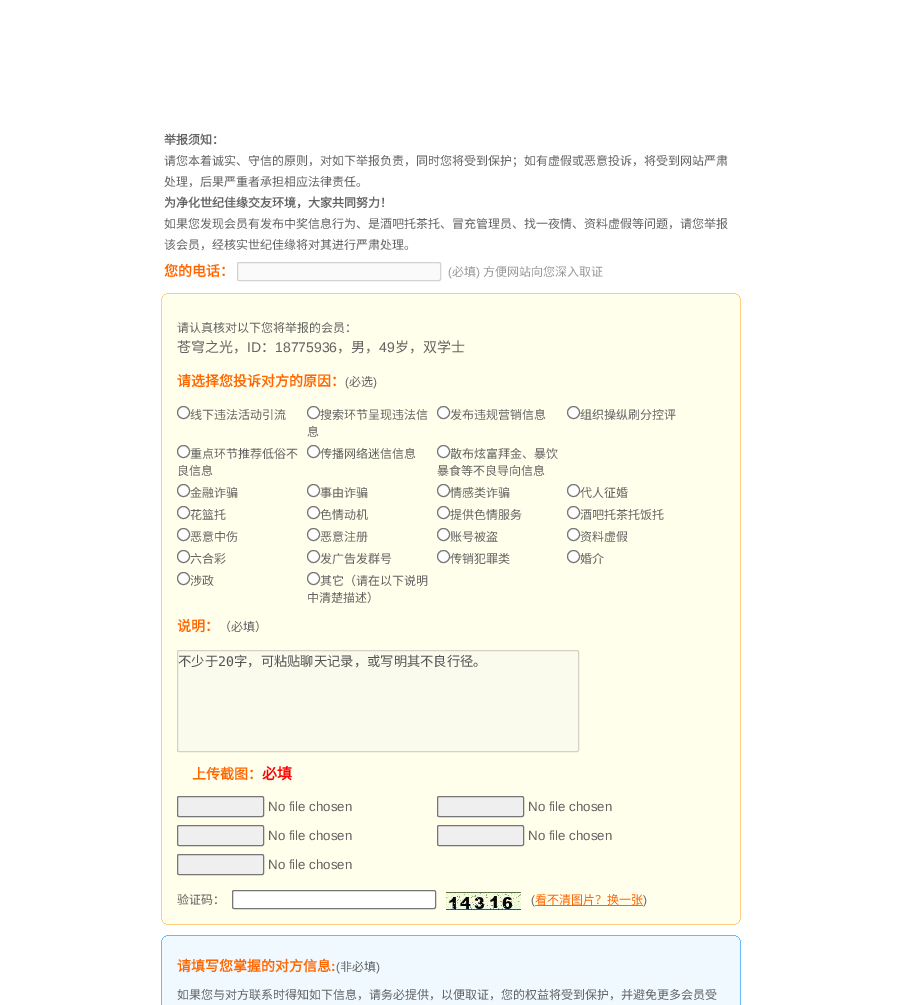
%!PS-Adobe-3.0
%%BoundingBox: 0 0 904 1005
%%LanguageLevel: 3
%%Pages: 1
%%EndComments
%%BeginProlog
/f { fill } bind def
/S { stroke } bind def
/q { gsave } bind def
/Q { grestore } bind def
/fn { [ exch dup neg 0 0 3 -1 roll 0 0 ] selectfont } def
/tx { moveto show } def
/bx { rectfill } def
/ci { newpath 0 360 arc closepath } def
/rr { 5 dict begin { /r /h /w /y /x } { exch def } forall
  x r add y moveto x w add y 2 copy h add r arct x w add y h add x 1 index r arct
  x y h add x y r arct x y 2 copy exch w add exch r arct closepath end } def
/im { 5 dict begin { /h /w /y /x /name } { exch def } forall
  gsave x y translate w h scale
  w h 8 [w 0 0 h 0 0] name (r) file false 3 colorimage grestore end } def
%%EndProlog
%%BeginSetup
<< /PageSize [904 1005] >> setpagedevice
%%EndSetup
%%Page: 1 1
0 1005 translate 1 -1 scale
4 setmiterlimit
1 setgray
0 0 904 1005 bx
/NotoSansCJKSC-Bold 12 fn
0.388 setgray
(举报须知：) 164 144 tx
/NotoSansCJKSC-Regular 12 fn
(请您本着诚实、守信的原则，对如下举报负责，同时您将受到保护；如有虚假或恶意投诉，将受到网站严肃) 164 165 tx
(处理，后果严重者承担相应法律责任。) 164 186 tx
/NotoSansCJKSC-Bold 12 fn
(为净化世纪佳缘交友环境，大家共同努力！) 164 207 tx
/NotoSansCJKSC-Regular 12 fn
(如果您发现会员有发布中奖信息行为、是酒吧托茶托、冒充管理员、找一夜情、资料虚假等问题，请您举报) 164 228 tx
(该会员，经核实世纪佳缘将对其进行严肃处理。) 164 249 tx
/NotoSansCJKSC-Bold 14 fn
1 0.4 0 setrgbcolor
(您的电话：) 164 276 tx
0.98 setgray
237.5 262.5 203 18 1.5 rr q f Q
0.824 setgray
S
/LiberationSans-Regular 12 fn
0.6 setgray
(\() 448 276 tx
/NotoSansCJKSC-Regular 12 fn
(必填) 452 276 tx
/LiberationSans-Regular 12 fn
(\)) 476 276 tx
/NotoSansCJKSC-Regular 12 fn
(方便网站向您深入取证) 483 276 tx
1 0.8 0.502 setrgbcolor
166 293 570 1 bx
1 1 0.925 setrgbcolor
164 294 574 1 bx
1 0.8 0.502 setrgbcolor
736 294 2 1 bx
164 294 2 1 bx
1 1 0.925 setrgbcolor
163 295 576 1 bx
1 0.8 0.502 setrgbcolor
738 295 1 1 bx
163 295 1 1 bx
1 1 0.925 setrgbcolor
162 296 578 626 bx
1 0.8 0.502 setrgbcolor
739 296 1 2 bx
162 296 1 2 bx
740 298 1 622 bx
161 298 1 622 bx
0.388 setgray
(请认真核对以下您将举报的会员：) 177 332 tx
/NotoSansCJKSC-Regular 14 fn
(苍穹之光，) 177 352 tx
/LiberationSans-Regular 14 fn
(ID) 247 352 tx
/NotoSansCJKSC-Regular 14 fn
(：) 261 352 tx
/LiberationSans-Regular 14 fn
(18775936) 275 352 tx
/NotoSansCJKSC-Regular 14 fn
(，男，) 337 352 tx
/LiberationSans-Regular 14 fn
(49) 379 352 tx
/NotoSansCJKSC-Regular 14 fn
(岁，双学士) 395 352 tx
/NotoSansCJKSC-Bold 14 fn
1 0.4 0 setrgbcolor
(请选择您投诉对方的原因：) 177 386 tx
/LiberationSans-Regular 12 fn
0.388 setgray
(\() 345 386 tx
/NotoSansCJKSC-Regular 12 fn
(必选) 349 386 tx
/LiberationSans-Regular 12 fn
(\)) 373 386 tx
1 setgray
183.5 412.5 6 ci q f Q
0.463 setgray
S
/NotoSansCJKSC-Regular 12 fn
0.388 setgray
(线下违法活动引流) 190 419 tx
1 setgray
313.5 412.5 6 ci q f Q
0.463 setgray
S
0.388 setgray
(搜索环节呈现违法信) 320 419 tx
(息) 307 436 tx
1 setgray
443.5 412.5 6 ci q f Q
0.463 setgray
S
0.388 setgray
(发布违规营销信息) 450 419 tx
1 setgray
573.5 412.5 6 ci q f Q
0.463 setgray
S
0.388 setgray
(组织操纵刷分控评) 580 419 tx
1 setgray
183.5 451.5 6 ci q f Q
0.463 setgray
S
0.388 setgray
(重点环节推荐低俗不) 190 458 tx
(良信息) 177 475 tx
1 setgray
313.5 451.5 6 ci q f Q
0.463 setgray
S
0.388 setgray
(传播网络迷信信息) 320 458 tx
1 setgray
443.5 451.5 6 ci q f Q
0.463 setgray
S
0.388 setgray
(散布炫富拜金、暴饮) 450 458 tx
(暴食等不良导向信息) 437 475 tx
1 setgray
183.5 490.5 6 ci q f Q
0.463 setgray
S
0.388 setgray
(金融诈骗) 190 497 tx
1 setgray
313.5 490.5 6 ci q f Q
0.463 setgray
S
0.388 setgray
(事由诈骗) 320 497 tx
1 setgray
443.5 490.5 6 ci q f Q
0.463 setgray
S
0.388 setgray
(情感类诈骗) 450 497 tx
1 setgray
573.5 490.5 6 ci q f Q
0.463 setgray
S
0.388 setgray
(代人征婚) 580 497 tx
1 setgray
183.5 512.5 6 ci q f Q
0.463 setgray
S
0.388 setgray
(花篮托) 190 519 tx
1 setgray
313.5 512.5 6 ci q f Q
0.463 setgray
S
0.388 setgray
(色情动机) 320 519 tx
1 setgray
443.5 512.5 6 ci q f Q
0.463 setgray
S
0.388 setgray
(提供色情服务) 450 519 tx
1 setgray
573.5 512.5 6 ci q f Q
0.463 setgray
S
0.388 setgray
(酒吧托茶托饭托) 580 519 tx
1 setgray
183.5 534.5 6 ci q f Q
0.463 setgray
S
0.388 setgray
(恶意中伤) 190 541 tx
1 setgray
313.5 534.5 6 ci q f Q
0.463 setgray
S
0.388 setgray
(恶意注册) 320 541 tx
1 setgray
443.5 534.5 6 ci q f Q
0.463 setgray
S
0.388 setgray
(账号被盗) 450 541 tx
1 setgray
573.5 534.5 6 ci q f Q
0.463 setgray
S
0.388 setgray
(资料虚假) 580 541 tx
1 setgray
183.5 556.5 6 ci q f Q
0.463 setgray
S
0.388 setgray
(六合彩) 190 563 tx
1 setgray
313.5 556.5 6 ci q f Q
0.463 setgray
S
0.388 setgray
(发广告发群号) 320 563 tx
1 setgray
443.5 556.5 6 ci q f Q
0.463 setgray
S
0.388 setgray
(传销犯罪类) 450 563 tx
1 setgray
573.5 556.5 6 ci q f Q
0.463 setgray
S
0.388 setgray
(婚介) 580 563 tx
1 setgray
183.5 578.5 6 ci q f Q
0.463 setgray
S
0.388 setgray
(涉政) 190 585 tx
1 setgray
313.5 578.5 6 ci q f Q
0.463 setgray
S
0.388 setgray
(其它（请在以下说明) 320 585 tx
(中清楚描述）) 307 602 tx
/NotoSansCJKSC-Bold 14 fn
1 0.4 0 setrgbcolor
(说明：) 177 631 tx
/NotoSansCJKSC-Regular 12 fn
0.388 setgray
(（必填）) 219 631 tx
0.98 0.98 0.929 setrgbcolor
177.5 650.5 401 101 1.5 rr q f Q
0.824 0.824 0.788 setrgbcolor
S
/NotoSansCJKSC-Regular 13.3 fn
0.329 setgray
(不少于) 178 666 tx
/DejaVuSansMono-Regular 13.3 fn
(20) 218 666 tx
/NotoSansCJKSC-Regular 13.3 fn
(字，可粘贴聊天记录，或写明其不良行径。) 234 666 tx
/NotoSansCJKSC-Bold 14 fn
1 0.4 0 setrgbcolor
(上传截图：) 192 779 tx
/NotoSansCJKSC-Bold 15 fn
1 0 0 setrgbcolor
(必填) 262 779 tx
0.937 setgray
177.5 796.5 86 20 1.5 rr q f Q
0.463 setgray
S
/LiberationSans-Regular 13.3 fn
0.388 setgray
(No file chosen) 268 811 tx
0.937 setgray
437.5 796.5 86 20 1.5 rr q f Q
0.463 setgray
S
0.388 setgray
(No file chosen) 528 811 tx
0.937 setgray
177.5 825.5 86 20 1.5 rr q f Q
0.463 setgray
S
0.388 setgray
(No file chosen) 268 840 tx
0.937 setgray
437.5 825.5 86 20 1.5 rr q f Q
0.463 setgray
S
0.388 setgray
(No file chosen) 528 840 tx
0.937 setgray
177.5 854.5 86 20 1.5 rr q f Q
0.463 setgray
S
0.388 setgray
(No file chosen) 268 869 tx
/NotoSansCJKSC-Regular 12 fn
(验证码：) 177 904 tx
1 setgray
232.5 890.5 203 18 1.5 rr q f Q
0.463 setgray
S
(image0.raw) 446 892 75 18 im
/LiberationSans-Regular 12 fn
0.388 setgray
(\() 531 904 tx
/NotoSansCJKSC-Regular 12 fn
1 0.4 0 setrgbcolor
(看不清图片？换一张) 535 904 tx
535 905 108 1 bx
/LiberationSans-Regular 12 fn
0.388 setgray
(\)) 643 904 tx
1 0.8 0.502 setrgbcolor
739 920 1 2 bx
162 920 1 2 bx
1 1 0.925 setrgbcolor
163 922 576 1 bx
1 0.8 0.502 setrgbcolor
738 922 1 1 bx
163 922 1 1 bx
1 1 0.925 setrgbcolor
164 923 574 1 bx
1 0.8 0.502 setrgbcolor
736 923 2 1 bx
164 923 2 1 bx
166 924 570 1 bx
0.408 0.733 1 setrgbcolor
166 935 570 1 bx
0.941 0.976 1 setrgbcolor
164 936 574 1 bx
0.408 0.733 1 setrgbcolor
736 936 2 1 bx
164 936 2 1 bx
0.941 0.976 1 setrgbcolor
163 937 576 1 bx
0.408 0.733 1 setrgbcolor
738 937 1 1 bx
163 937 1 1 bx
0.941 0.976 1 setrgbcolor
162 938 578 67 bx
0.408 0.733 1 setrgbcolor
739 938 1 2 bx
162 938 1 2 bx
740 940 1 65 bx
161 940 1 65 bx
/NotoSansCJKSC-Bold 14 fn
1 0.4 0 setrgbcolor
(请填写您掌握的对方信息) 177 971 tx
/LiberationSans-Bold 14 fn
(:) 331 971 tx
/LiberationSans-Regular 12 fn
0.388 setgray
(\() 336 971 tx
/NotoSansCJKSC-Regular 12 fn
(非必填) 340 971 tx
/LiberationSans-Regular 12 fn
(\)) 376 971 tx
/NotoSansCJKSC-Regular 12 fn
(如果您与对方联系时得知如下信息，请务必提供，以便取证，您的权益将受到保护，并避免更多会员受) 177 999 tx
showpage
%%EOF
